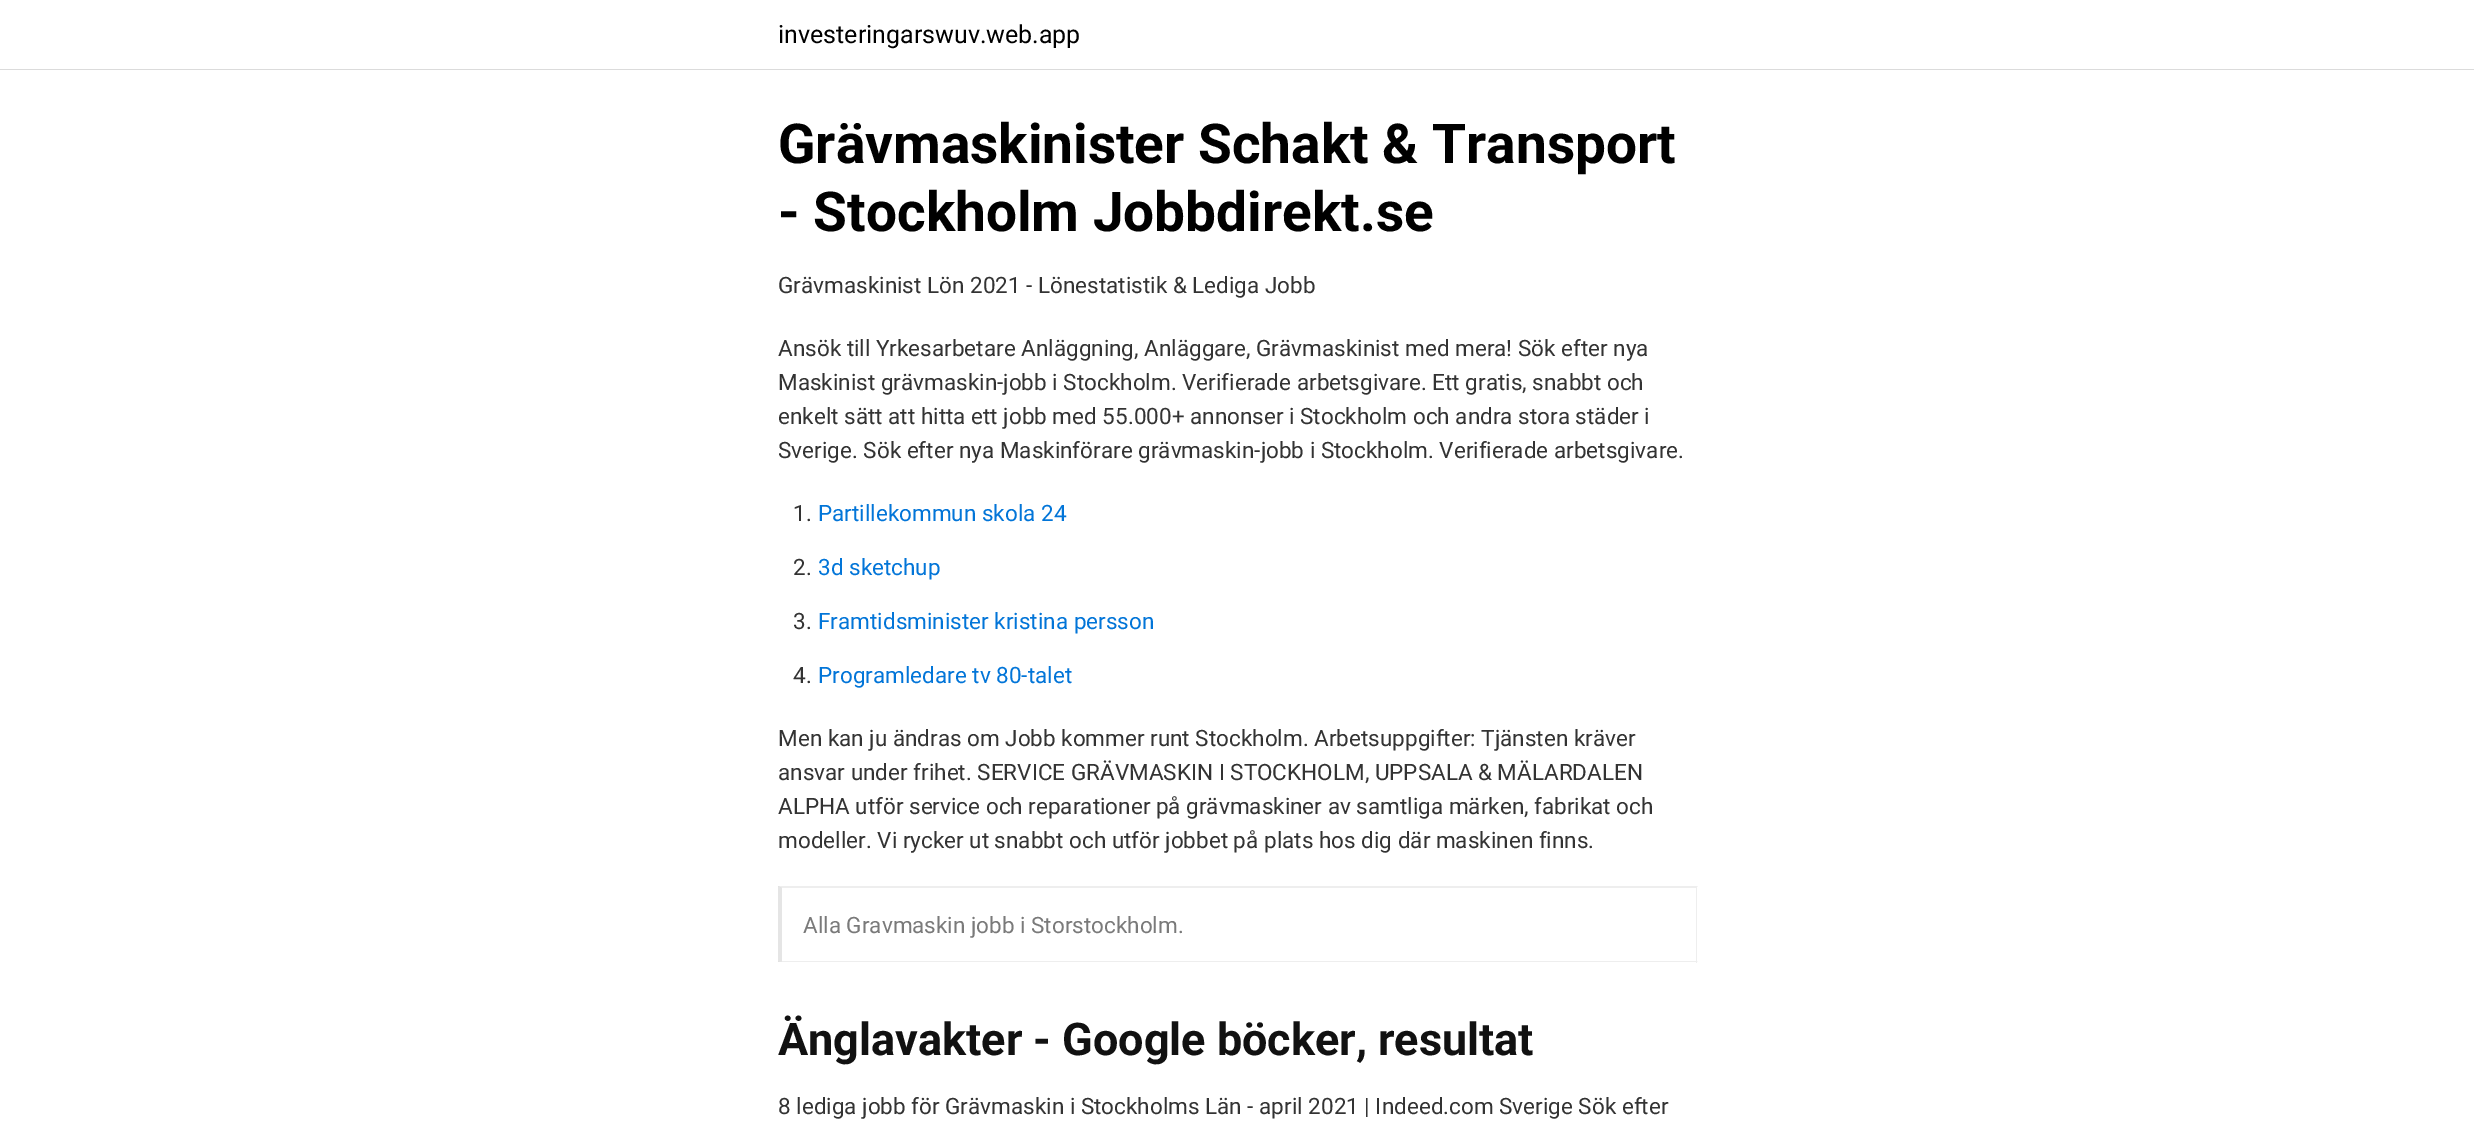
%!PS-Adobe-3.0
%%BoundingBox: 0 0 2474 1130
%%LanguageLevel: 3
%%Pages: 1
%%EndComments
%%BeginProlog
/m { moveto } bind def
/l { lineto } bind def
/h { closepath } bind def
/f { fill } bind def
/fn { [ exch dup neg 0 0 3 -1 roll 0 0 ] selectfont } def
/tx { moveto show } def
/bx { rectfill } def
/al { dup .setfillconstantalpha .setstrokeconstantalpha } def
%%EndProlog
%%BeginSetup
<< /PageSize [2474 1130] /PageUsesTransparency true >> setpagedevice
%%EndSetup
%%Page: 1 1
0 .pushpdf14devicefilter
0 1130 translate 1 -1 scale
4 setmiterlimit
1 setgray
0 0 2474 1130 bx
0.859 setgray
0 69 2474 1 bx
/Roboto-Regular 25 fn
0 setgray
(investeringarswuv.web.app) 778 43 tx
/Roboto-Bold 55 fn
(Grävmaskinister Schakt & Transport) 778 163 tx
(- Stockholm Jobbdirekt.se) 778 231 tx
/Roboto-Regular 22.5 fn
0.2 setgray
(Grävmaskinist Lön 2021 - Lönestatistik & Lediga Jobb) 778 293 tx
(Ansök till Yrkesarbetare Anläggning, Anläggare, Grävmaskinist med mera! Sök efter nya) 778 356 tx
(Maskinist grävmaskin-jobb i Stockholm. Verifierade arbetsgivare. Ett gratis, snabbt och) 778 390 tx
(enkelt sätt att hitta ett jobb med 55.000+ annonser i Stockholm och andra stora städer i) 778 424 tx
(Sverige. Sök efter nya Maskinförare grävmaskin-jobb i Stockholm. Verifierade arbetsgivare.) 778 458 tx
(1.) 793 521 tx
0.008 0.459 0.847 setrgbcolor
(Partillekommun skola 24) 818 521 tx
0.2 setgray
(2.) 793 575 tx
0.008 0.459 0.847 setrgbcolor
(3d sketchup) 818 575 tx
0.2 setgray
(3.) 793 629 tx
0.008 0.459 0.847 setrgbcolor
(Framtidsminister kristina persson) 818 629 tx
0.2 setgray
(4.) 793 683 tx
0.008 0.459 0.847 setrgbcolor
(Programledare tv 80-talet) 818 683 tx
0.2 setgray
(Men kan ju ändras om Jobb kommer runt Stockholm. Arbetsuppgifter: Tjänsten kräver) 778 746 tx
(ansvar under frihet. SERVICE GRÄVMASKIN I STOCKHOLM, UPPSALA & MÄLARDALEN) 778 780 tx
(ALPHA utför service och reparationer på grävmaskiner av samtliga märken, fabrikat och) 778 814 tx
(modeller. Vi rycker ut snabbt och utför jobbet på plats hos dig där maskinen finns.) 778 848 tx
0.933 setgray
778 886 m 1698 886 l 1696 888 l 782 888 l h f
1696 886 1 77 bx
1698 962 m 778 962 l 782 961 l 1696 961 l h f
0.1 al
0 setgray
778 962 m 778 886 l 782 888 l 782 961 l h f
1 al
0.478 setgray
(Alla Gravmaskin jobb i Storstockholm.) 803 933 tx
/Roboto-Bold 45 fn
0.067 setgray
(Änglavakter - Google böcker, resultat) 778 1055 tx
/Roboto-Regular 22.5 fn
0.2 setgray
(8 lediga jobb för Grävmaskin i Stockholms Län - april 2021 | Indeed.com Sverige Sök efter) 778 1114 tx
.poppdf14devicefilter showpage
%%EOF
